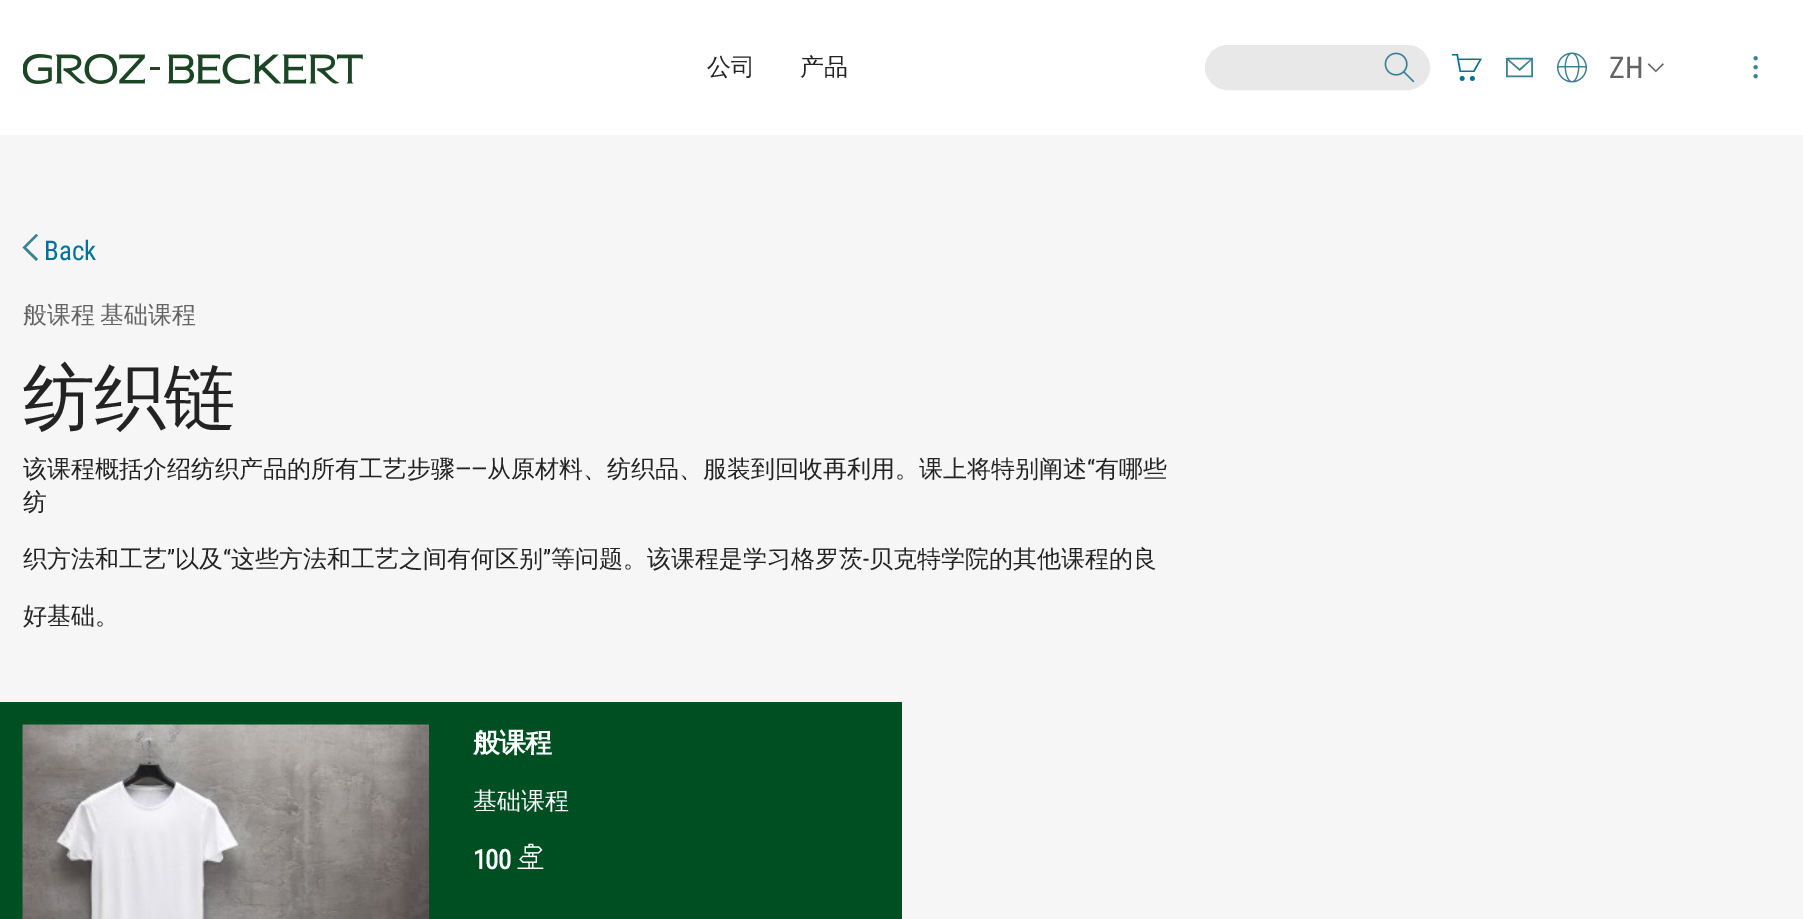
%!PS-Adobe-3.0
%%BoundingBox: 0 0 1803 919
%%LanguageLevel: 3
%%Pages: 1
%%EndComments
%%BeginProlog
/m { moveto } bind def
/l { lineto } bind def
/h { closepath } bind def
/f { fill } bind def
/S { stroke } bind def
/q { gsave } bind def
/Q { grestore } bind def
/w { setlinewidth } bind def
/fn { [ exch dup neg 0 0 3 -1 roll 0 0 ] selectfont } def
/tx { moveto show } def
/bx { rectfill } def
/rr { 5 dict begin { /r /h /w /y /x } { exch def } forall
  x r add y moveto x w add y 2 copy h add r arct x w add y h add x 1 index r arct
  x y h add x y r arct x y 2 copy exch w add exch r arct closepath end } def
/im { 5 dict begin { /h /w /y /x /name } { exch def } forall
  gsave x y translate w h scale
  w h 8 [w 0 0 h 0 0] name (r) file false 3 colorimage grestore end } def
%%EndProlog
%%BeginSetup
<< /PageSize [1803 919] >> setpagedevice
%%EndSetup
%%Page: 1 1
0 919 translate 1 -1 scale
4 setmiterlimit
0.965 setgray
0 0 1803 919 bx
1 setgray
0 0 1803 135 bx
(image0.raw) 23 54 340 30 im
/WenQuanYiZenHei-Medium 24 fn
0.137 setgray
(公司) 707 75 tx
(产品) 800 75 tx
0.91 setgray
1206 46 223 43 21.5 rr q f Q
2 w
S
(image1.raw) 1384 52 31 31 im
(image2.raw) 1452 54 30 27 im
(image3.raw) 1506 57 27 21 im
(image4.raw) 1557 52 30 31 im
/RobotoCondensed-Regular 30 fn
0.388 setgray
(ZH) 1609 78 tx
(image5.raw) 1647 63 17 10 im
(image6.raw) 1753 56 5 23 im
/RobotoCondensed-Regular 27 fn
0 0.447 0.596 setrgbcolor
(Back) 44 260 tx
0.231 0.506 0.58 setrgbcolor
36 261 m 38 259 l 26 247.5 l 38 235.5 l 36 234 l 22.5 247.5 l h f
/WenQuanYiZenHei-Medium 24 fn
0.388 setgray
(般课程) 23 323 tx
(基础课程) 100 323 tx
/WenQuanYiZenHei-Medium 72 fn
0.137 setgray
23 422 m -1.5 0 (纺织链) ashow
/WenQuanYiZenHei-Medium 24 fn
(该课程概括介绍纺织产品的所有工艺步骤) 23 477 tx
(从原材料、纺织品、服装到回收再利用。课上将特别阐述) 487 477 tx
/RobotoCondensed-Regular 24 fn
(“) 1087 477 tx
/WenQuanYiZenHei-Medium 24 fn
(有哪些) 1095 477 tx
/RobotoCondensed-Regular 24 fn
(——) 455 477 tx
/WenQuanYiZenHei-Medium 24 fn
(纺) 23 510 tx
(织方法和工艺) 23 567 tx
/RobotoCondensed-Regular 24 fn
(”) 167 567 tx
/WenQuanYiZenHei-Medium 24 fn
(以及) 175 567 tx
/RobotoCondensed-Regular 24 fn
(“) 223 567 tx
/WenQuanYiZenHei-Medium 24 fn
(这些方法和工艺之间有何区别) 231 567 tx
/RobotoCondensed-Regular 24 fn
(”) 543 567 tx
/WenQuanYiZenHei-Medium 24 fn
(等问题。该课程是学习格罗茨) 551 567 tx
(贝克特学院的其他课程的良) 869 567 tx
/RobotoCondensed-Regular 24 fn
(-) 863 567 tx
/WenQuanYiZenHei-Medium 24 fn
(好基础。) 23 624 tx
0 0.31 0.137 setrgbcolor
0 702 902 217 bx
(image7.raw) 22 724 407 195 im
/WenQuanYiZenHei-Bold 27 fn
1 setgray
473 752 m -1 0 (般课程) ashow
/WenQuanYiZenHei-Medium 24 fn
(基础课程) 473 809 tx
/RobotoCondensed-Bold 27 fn
473 869 m -1 0 (100) ashow
(image8.raw) 517 843 27 26 im
showpage
%%EOF
